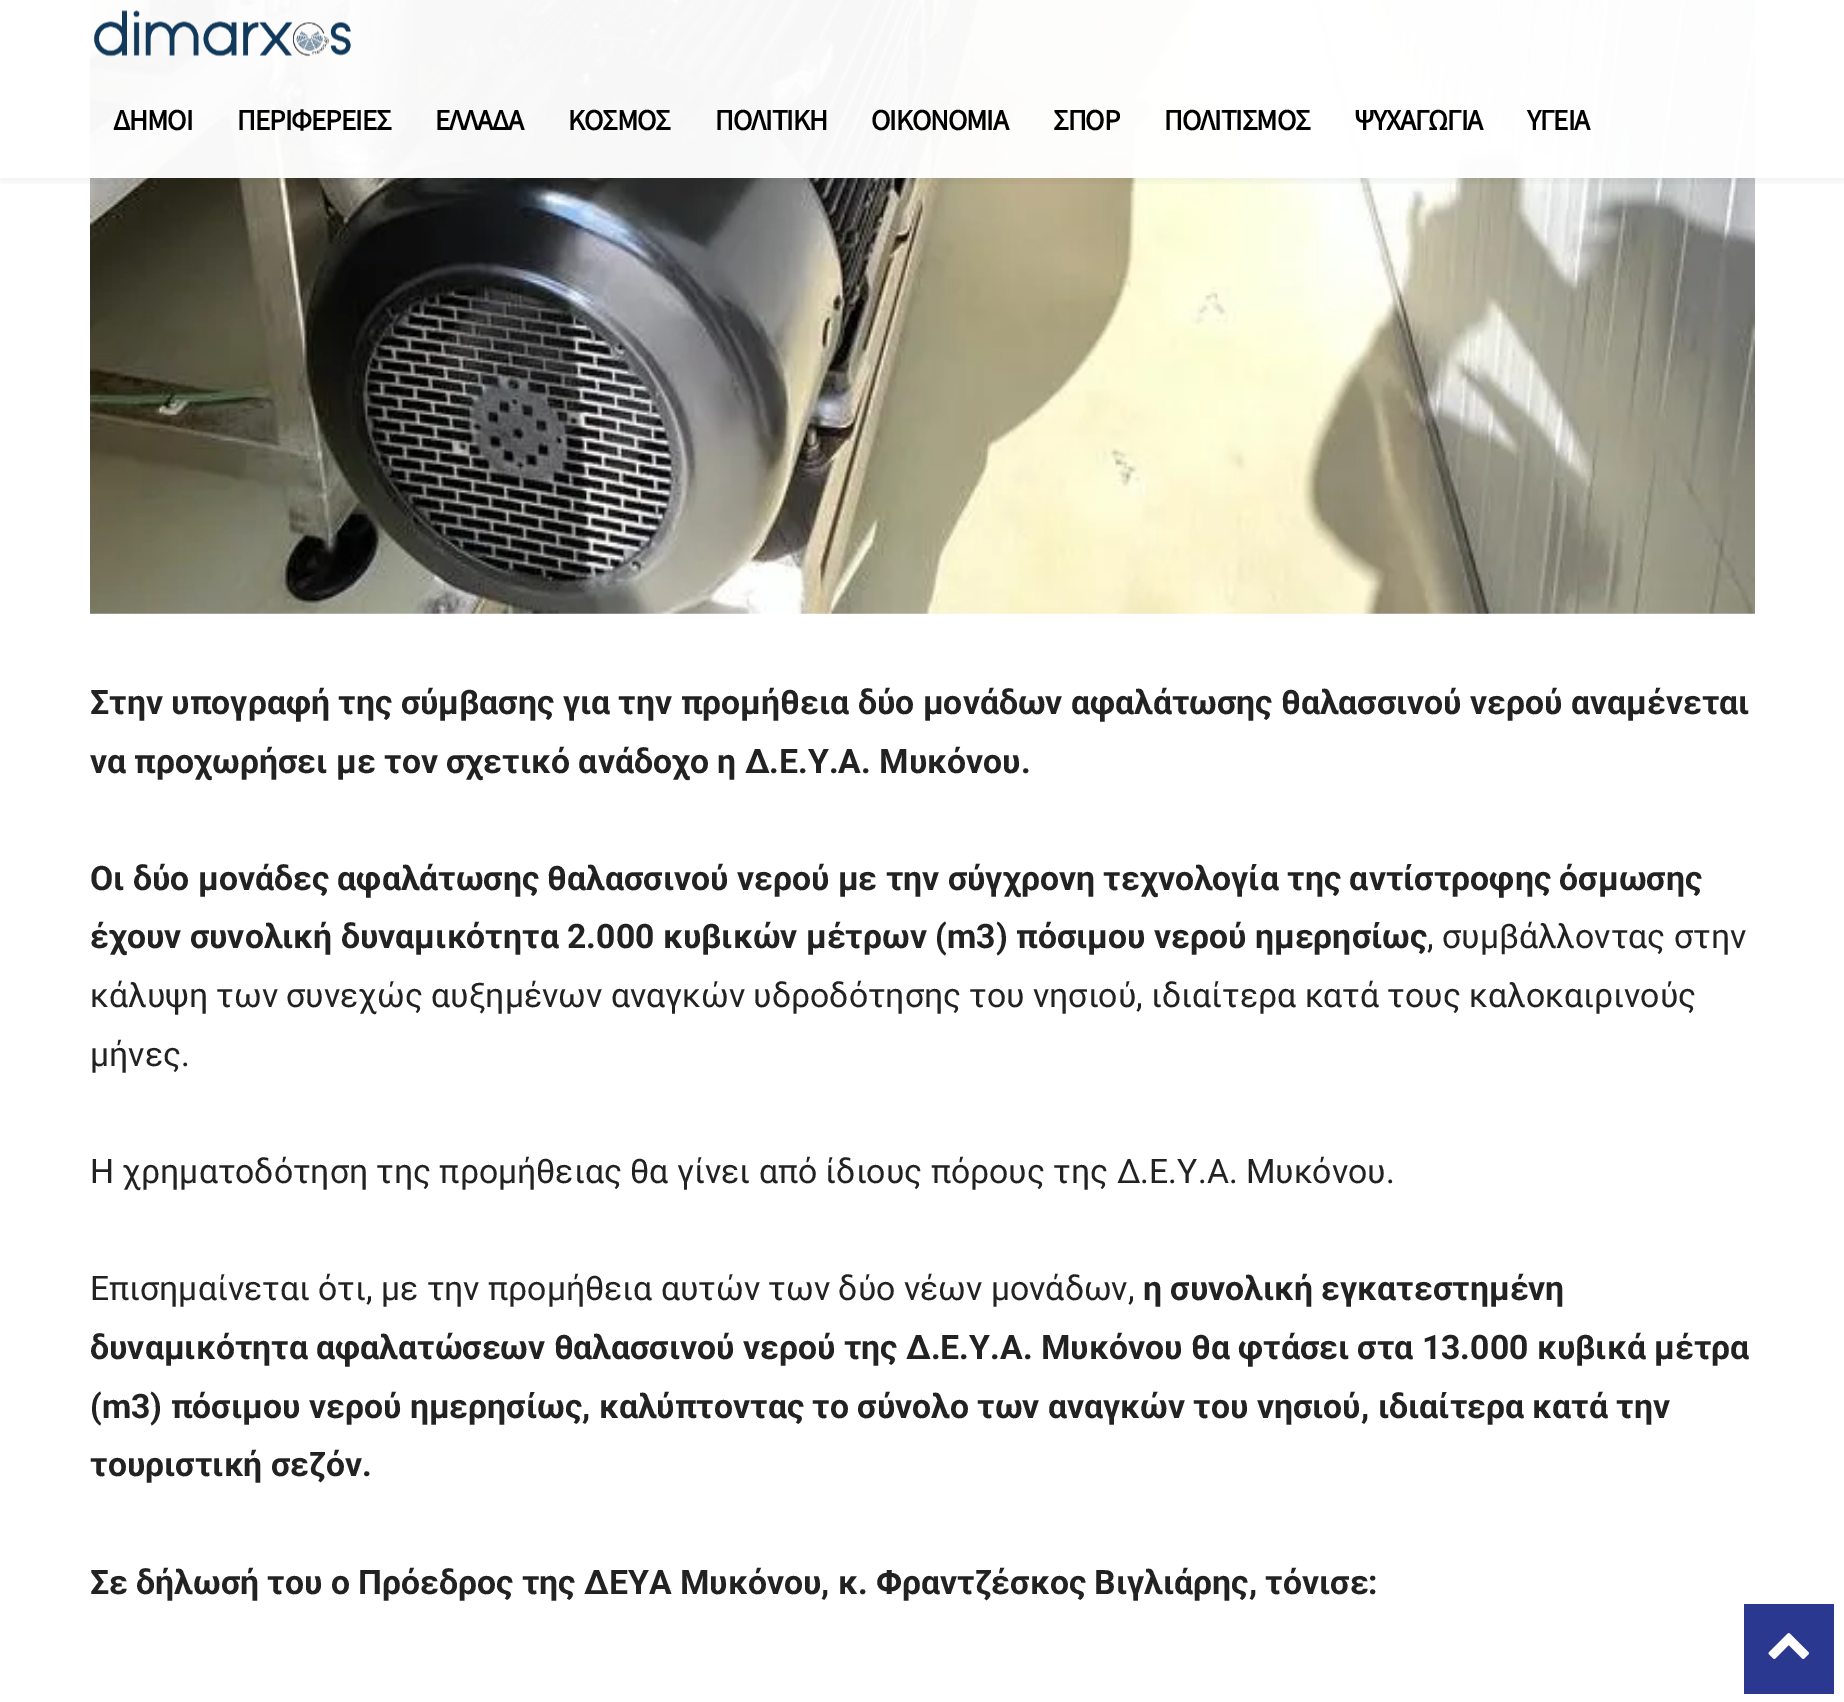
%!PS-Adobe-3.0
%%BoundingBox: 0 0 1844 1702
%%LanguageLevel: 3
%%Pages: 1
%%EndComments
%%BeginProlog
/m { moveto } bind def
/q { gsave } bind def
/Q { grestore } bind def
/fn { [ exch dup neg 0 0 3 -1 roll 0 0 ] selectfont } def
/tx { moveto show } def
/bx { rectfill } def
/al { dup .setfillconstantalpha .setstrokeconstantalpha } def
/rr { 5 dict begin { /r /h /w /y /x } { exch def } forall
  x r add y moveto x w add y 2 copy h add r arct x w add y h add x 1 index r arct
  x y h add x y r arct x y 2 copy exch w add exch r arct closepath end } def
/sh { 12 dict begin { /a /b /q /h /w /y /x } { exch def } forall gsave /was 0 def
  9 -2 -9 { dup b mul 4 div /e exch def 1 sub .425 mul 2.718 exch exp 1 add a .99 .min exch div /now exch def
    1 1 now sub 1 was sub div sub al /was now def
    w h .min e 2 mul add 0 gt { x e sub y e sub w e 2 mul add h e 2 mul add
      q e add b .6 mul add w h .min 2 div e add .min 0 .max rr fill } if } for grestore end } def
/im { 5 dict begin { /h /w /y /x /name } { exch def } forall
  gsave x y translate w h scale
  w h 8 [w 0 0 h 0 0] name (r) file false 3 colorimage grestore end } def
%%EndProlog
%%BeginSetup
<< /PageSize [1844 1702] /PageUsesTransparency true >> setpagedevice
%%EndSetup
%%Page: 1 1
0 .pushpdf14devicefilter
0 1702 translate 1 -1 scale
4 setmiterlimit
1 setgray
0 0 1844 1702 bx
(image1.raw) 90 0 1665 614 im
0.97 al
90 0 1665 178 bx
1 al
(image0.raw) 93 10 258 47 im
q
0 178 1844 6 rectclip
0 setgray
0 5 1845 177 0 4.5 0.06 sh
Q
/SourceSansPro-Bold 29.25 fn
0 setgray
113 130 m -1.1 0 (ΔΗΜΟΙ) ashow
237 130 m -1.1 0 (ΠΕΡΙΦΕΡΕΙΕΣ) ashow
435 130 m -1.1 0 (ΕΛΛΑΔΑ) ashow
568 130 m -1.1 0 (ΚΟΣΜΟΣ) ashow
715 130 m -1.1 0 (ΠΟΛΙΤΙΚΗ) ashow
871 130 m -1.1 0 (ΟΙΚΟΝΟΜΙΑ) ashow
1053 130 m -1.1 0 (ΣΠΟΡ) ashow
1164 130 m -1.1 0 (ΠΟΛΙΤΙΣΜΟΣ) ashow
1354 130 m -1.1 0 (ΨΥΧΑΓΩΓΙΑ) ashow
1527 130 m -1.1 0 (ΥΓΕΙΑ) ashow
/Roboto-Bold 33.75 fn
0.133 setgray
(Στην υπογραφή της σύμβασης για την προμήθεια δύο μονάδων αφαλάτωσης θαλασσινού νερού αναμένεται) 90 714 tx
(να προχωρήσει με τον σχετικό ανάδοχο η Δ.Ε.Υ.Α. Μυκόνου.) 90 773 tx
(Οι δύο μονάδες αφαλάτωσης θαλασσινού νερού με την σύγχρονη τεχνολογία της αντίστροφης όσμωσης) 90 890 tx
(έχουν συνολική δυναμικότητα 2.000 κυβικών μέτρων \(m3\) πόσιμου νερού ημερησίως) 90 948 tx
/Roboto-Regular 33.75 fn
(, συμβάλλοντας στην) 1427 948 tx
(κάλυψη των συνεχώς αυξημένων αναγκών υδροδότησης του νησιού, ιδιαίτερα κατά τους καλοκαιρινούς) 90 1007 tx
(μήνες.) 90 1066 tx
(Η χρηματοδότηση της προμήθειας θα γίνει από ίδιους πόρους της Δ.Ε.Υ.Α. Μυκόνου.) 90 1183 tx
(Επισημαίνεται ότι, με την προμήθεια αυτών των δύο νέων μονάδων,) 90 1300 tx
/Roboto-Bold 33.75 fn
(η συνολική εγκατεστημένη) 1143 1300 tx
(δυναμικότητα αφαλατώσεων θαλασσινού νερού της Δ.Ε.Υ.Α. Μυκόνου θα φτάσει στα 13.000 κυβικά μέτρα) 90 1359 tx
(\(m3\) πόσιμου νερού ημερησίως, καλύπτοντας το σύνολο των αναγκών του νησιού, ιδιαίτερα κατά την) 90 1418 tx
(τουριστική σεζόν.) 90 1476 tx
(Σε δήλωσή του ο Πρόεδρος της ΔΕΥΑ Μυκόνου, κ. Φραντζέσκος Βιγλιάρης, τόνισε:) 90 1594 tx
0.169 0.22 0.561 setrgbcolor
1744 1604 90 90 bx
(image2.raw) 1768 1633 41 26 im
.poppdf14devicefilter showpage
%%EOF
